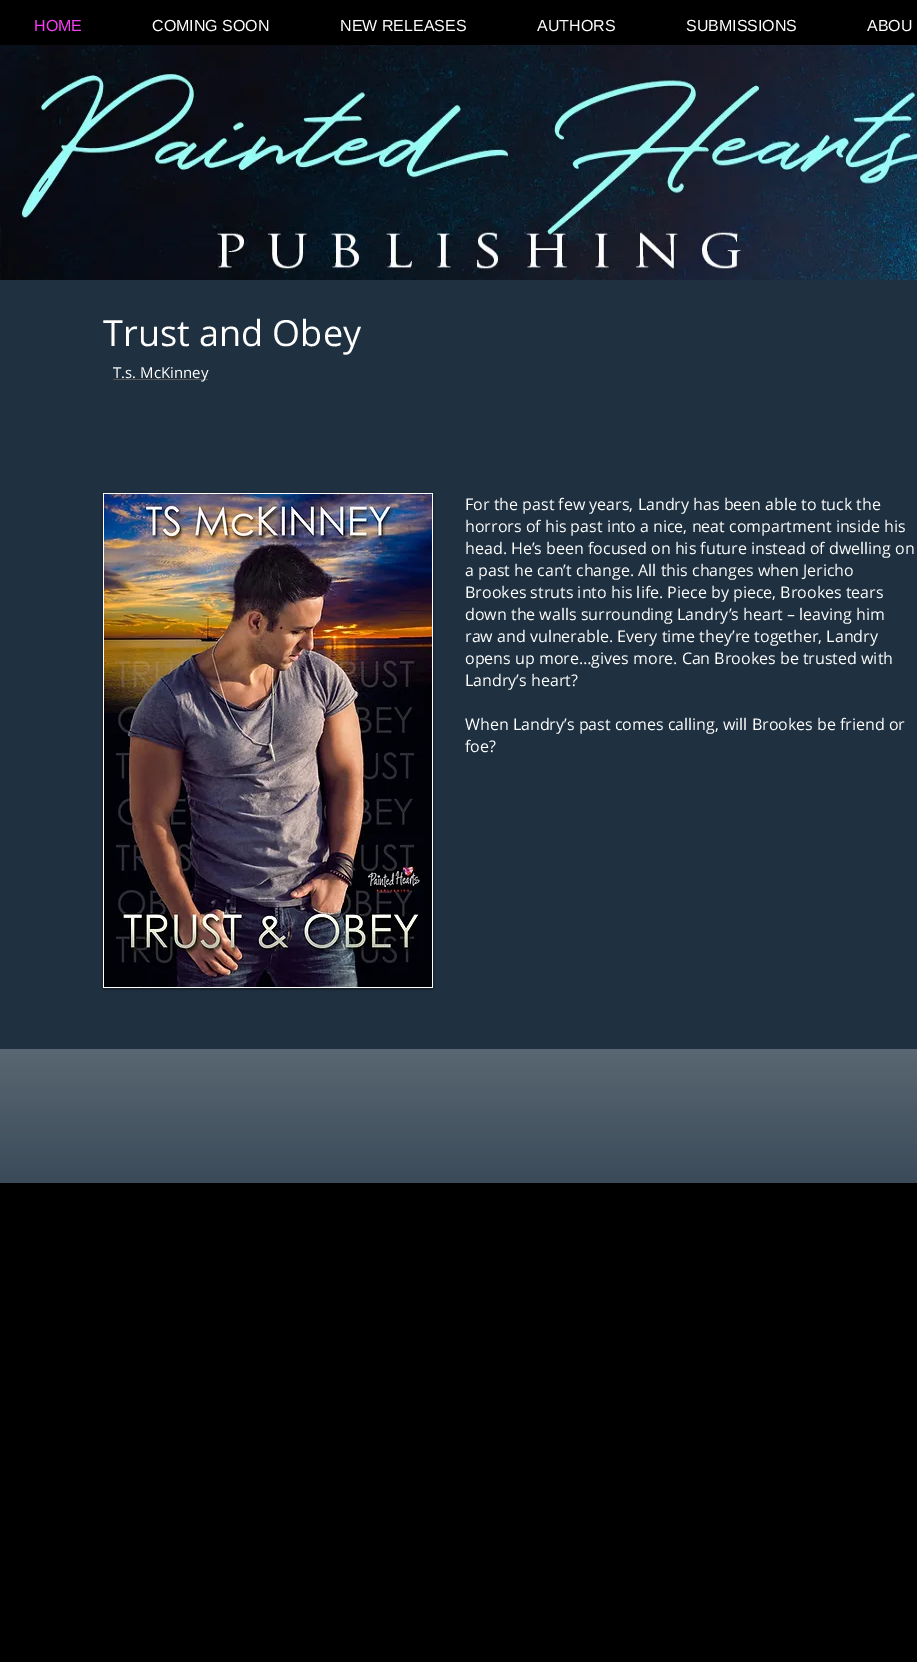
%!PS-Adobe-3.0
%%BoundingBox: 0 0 917 1662
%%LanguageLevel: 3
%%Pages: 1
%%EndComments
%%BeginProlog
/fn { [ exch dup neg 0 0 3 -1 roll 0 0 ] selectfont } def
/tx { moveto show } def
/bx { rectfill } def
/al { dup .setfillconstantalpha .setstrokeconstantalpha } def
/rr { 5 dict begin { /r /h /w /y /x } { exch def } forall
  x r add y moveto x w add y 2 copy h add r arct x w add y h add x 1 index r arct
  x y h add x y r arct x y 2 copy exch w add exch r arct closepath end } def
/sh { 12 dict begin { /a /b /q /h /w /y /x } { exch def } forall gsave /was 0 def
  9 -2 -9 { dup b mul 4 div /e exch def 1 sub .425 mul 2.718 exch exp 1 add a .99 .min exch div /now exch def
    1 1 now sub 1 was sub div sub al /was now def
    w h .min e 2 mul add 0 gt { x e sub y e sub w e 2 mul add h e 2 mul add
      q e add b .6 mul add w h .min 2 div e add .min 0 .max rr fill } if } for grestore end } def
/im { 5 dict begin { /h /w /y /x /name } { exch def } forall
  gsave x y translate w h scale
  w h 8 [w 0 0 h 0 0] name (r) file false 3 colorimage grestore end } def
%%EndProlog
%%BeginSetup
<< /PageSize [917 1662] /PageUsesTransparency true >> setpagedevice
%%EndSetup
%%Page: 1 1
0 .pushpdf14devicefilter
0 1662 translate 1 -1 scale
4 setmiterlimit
0 setgray
0 0 917 1662 bx
/LiberationSans-Regular 16 fn
0.961 0.243 0.937 setrgbcolor
(HOME) 34 31 tx
1 setgray
(COMING SOON) 152 31 tx
(NEW RELEASES) 340 31 tx
(AUTHORS) 537 31 tx
(SUBMISSIONS) 686 31 tx
(ABOU) 867 31 tx
(image0.raw) 0 45 917 235 im
0.122 0.192 0.255 setrgbcolor
0 280 917 903 bx
/OpenSans-Regular 36 fn
1 setgray
(Trust and Obey) 103 346 tx
0.341 setgray
113 379 95 1 bx
/OpenSans-Regular 15 fn
1 setgray
(T.s. McKinney) 113 378 tx
0 setgray
103 494 330 495 0 1.5 0.5 sh
1 setgray
103 493 330 495 bx
(image1.raw) 104 494 328 493 im
/OpenSans-Regular 16 fn
(For the past few years, Landry has been able to tuck the) 465 510 tx
(horrors of his past into a nice, neat compartment inside his) 465 532 tx
(head. He’s been focused on his future instead of dwelling on) 465 554 tx
(a past he can’t change. All this changes when Jericho) 465 576 tx
(Brookes struts into his life. Piece by piece, Brookes tears) 465 598 tx
(down the walls surrounding Landry’s heart – leaving him) 465 620 tx
(raw and vulnerable. Every time they’re together, Landry) 465 642 tx
(opens up more…gives more. Can Brookes be trusted with) 465 664 tx
(Landry’s heart?) 465 686 tx
(When Landry’s past comes calling, will Brookes be friend or) 465 730 tx
(foe?) 465 752 tx
(image2.raw) 0 1049 917 134 im
.poppdf14devicefilter showpage
%%EOF
